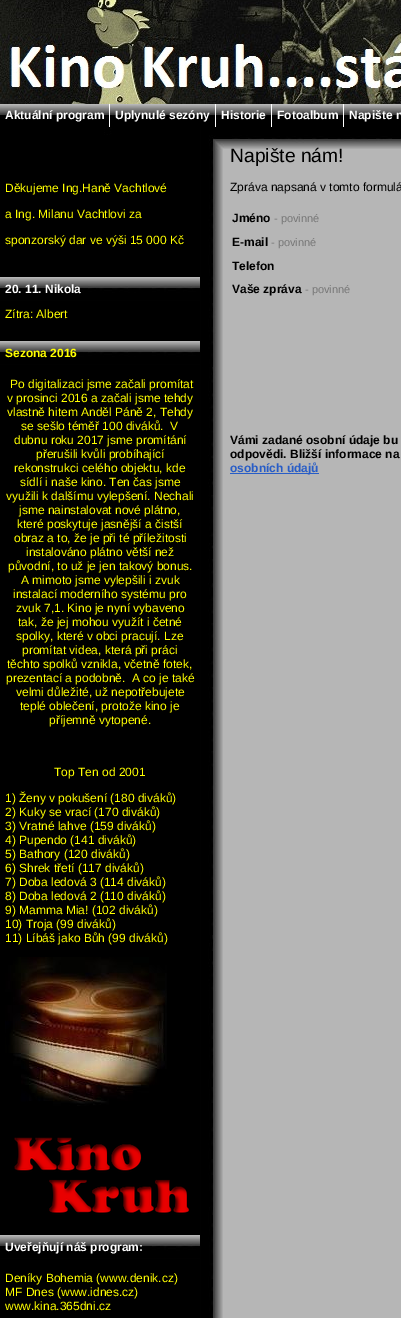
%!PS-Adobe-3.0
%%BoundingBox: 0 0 401 1318
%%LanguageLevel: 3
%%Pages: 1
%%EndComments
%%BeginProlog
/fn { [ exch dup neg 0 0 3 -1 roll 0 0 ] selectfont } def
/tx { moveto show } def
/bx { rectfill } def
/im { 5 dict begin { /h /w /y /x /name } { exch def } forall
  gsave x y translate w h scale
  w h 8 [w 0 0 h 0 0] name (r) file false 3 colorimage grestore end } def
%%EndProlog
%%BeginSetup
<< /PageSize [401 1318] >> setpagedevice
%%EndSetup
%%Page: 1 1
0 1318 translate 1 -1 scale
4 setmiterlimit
1 setgray
0 0 401 1318 bx
(image0.raw) 0 0 401 104 im
(image1.raw) 0 104 401 23 im
/LiberationSans-Bold 12 fn
(Aktuální program) 5 119 tx
109 104 1 23 bx
(image2.raw) 120 115 86 1 im
(Uplynulé sezóny) 115 119 tx
215 104 1 23 bx
(image3.raw) 216 115 55 1 im
(Historie) 221 119 tx
271 104 1 23 bx
(image4.raw) 295 115 41 1 im
(Fotoalbum) 277 119 tx
343 104 1 23 bx
(image5.raw) 345 115 48 1 im
(Napište n) 349 119 tx
(image6.raw) 0 127 401 1191 im
0 setgray
105 127 5 7 bx
/LiberationSans-Regular 12 fn
1 1 0 setrgbcolor
(Děkujeme Ing.Haně Vachtlové) 5 192 tx
(a Ing. Milanu Vachtlovi za) 5 218 tx
(sponzorský dar ve výši 15 000 Kč) 5 244 tx
(image7.raw) 0 277 200 24 im
/LiberationSans-Bold 12 fn
1 setgray
(20. 11. Nikola) 5 293 tx
/LiberationSans-Regular 12 fn
1 1 0 setrgbcolor
(Zítra: Albert) 5 318 tx
(image7.raw) 0 341 200 24 im
/LiberationSans-Bold 12 fn
(Sezona 2016) 5 357 tx
/LiberationSans-Regular 12 fn
(Po digitalizaci jsme začali promítat) 10 388 tx
(v prosinci 2016 a začali jsme tehdy) 7 402 tx
(vlastně hitem Anděl Páně 2, Tehdy) 7 416 tx
(se sešlo téměř 100 diváků.  V) 21 430 tx
(dubnu roku 2017 jsme promítání) 14 444 tx
(přerušili kvůli probíhající) 36 458 tx
(rekonstrukci celého objektu, kde) 14 472 tx
(sídlí i naše kino. Ten čas jsme) 20 486 tx
(využili k dalšímu vylepšení. Nechali) 6 500 tx
(jsme nainstalovat nové plátno,) 19 514 tx
(které poskytuje jasnější a čistší) 17 528 tx
(obraz a to, že je při té příležitosti) 14 542 tx
(instalováno plátno větší než) 26 556 tx
(původní, to už je jen takový bonus.) 8 570 tx
(A mimoto jsme vylepšili i zvuk) 21 584 tx
(instalací moderního systému pro) 13 598 tx
(zvuk 7,1. Kino je nyní vybaveno) 16 612 tx
(tak, že jej mohou využít i četné) 18 626 tx
(spolky, které v obci pracují. Lze) 16 640 tx
(promítat videa, která při práci) 22 654 tx
(těchto spolků vznikla, včetně fotek,) 7 668 tx
(prezentací a podobně.  A co je také) 6 682 tx
(velmi důležité, už nepotřebujete) 16 696 tx
(teplé oblečení, protože kino je) 20 710 tx
(příjemně vytopené.) 49 724 tx
(Top Ten od 2001) 54 776 tx
(1\) Ženy v pokušení \(180 diváků\)) 5 802 tx
(2\) Kuky se vrací \(170 diváků\)) 5 816 tx
(3\) Vratné lahve \(159 diváků\)) 5 830 tx
(4\) Pupendo \(141 diváků\)) 5 844 tx
(5\) Bathory \(120 diváků\)) 5 858 tx
(6\) Shrek třetí \(117 diváků\)) 5 872 tx
(7\) Doba ledová 3 \(114 diváků\)) 5 886 tx
(8\) Doba ledová 2 \(110 diváků\)) 5 900 tx
(9\) Mamma Mia! \(102 diváků\)) 5 914 tx
(10\) Troja \(99 diváků\)) 5 928 tx
(11\) Líbáš jako Bůh \(99 diváků\)) 5 942 tx
(image8.raw) 5 957 162 149 im
(image9.raw) 14 1137 176 78 im
(image7.raw) 0 1235 200 24 im
/LiberationSans-Bold 12 fn
1 setgray
(Uveřejňují náš program:) 5 1251 tx
/LiberationSans-Regular 12 fn
1 1 0 setrgbcolor
(Deníky Bohemia \(www.denik.cz\)) 5 1282 tx
(MF Dnes \(www.idnes.cz\)) 5 1296 tx
(www.kina.365dni.cz) 5 1310 tx
/LiberationSans-Regular 19.25 fn
0 setgray
(Napište nám!) 230 162 tx
/LiberationSans-Regular 12 fn
(Zpráva napsaná v tomto formulá) 230 191 tx
/LiberationSans-Bold 12 fn
(Jméno) 232 222 tx
/LiberationSans-Regular 11 fn
0.467 setgray
(- povinné) 274 222 tx
/LiberationSans-Bold 12 fn
0 setgray
(E-mail) 232 246 tx
/LiberationSans-Regular 11 fn
0.467 setgray
(- povinné) 271 246 tx
/LiberationSans-Bold 12 fn
0 setgray
(Telefon) 232 270 tx
(Vaše zpráva) 232 293 tx
/LiberationSans-Regular 11 fn
0.467 setgray
(- povinné) 305 293 tx
/LiberationSans-Bold 12 fn
0 setgray
(Vámi zadané osobní údaje bu) 230 444 tx
(odpovědi. Bližší informace na) 230 458 tx
0.157 0.365 0.78 setrgbcolor
230 473 89 1 bx
(osobních údajů) 230 472 tx
showpage
%%EOF
